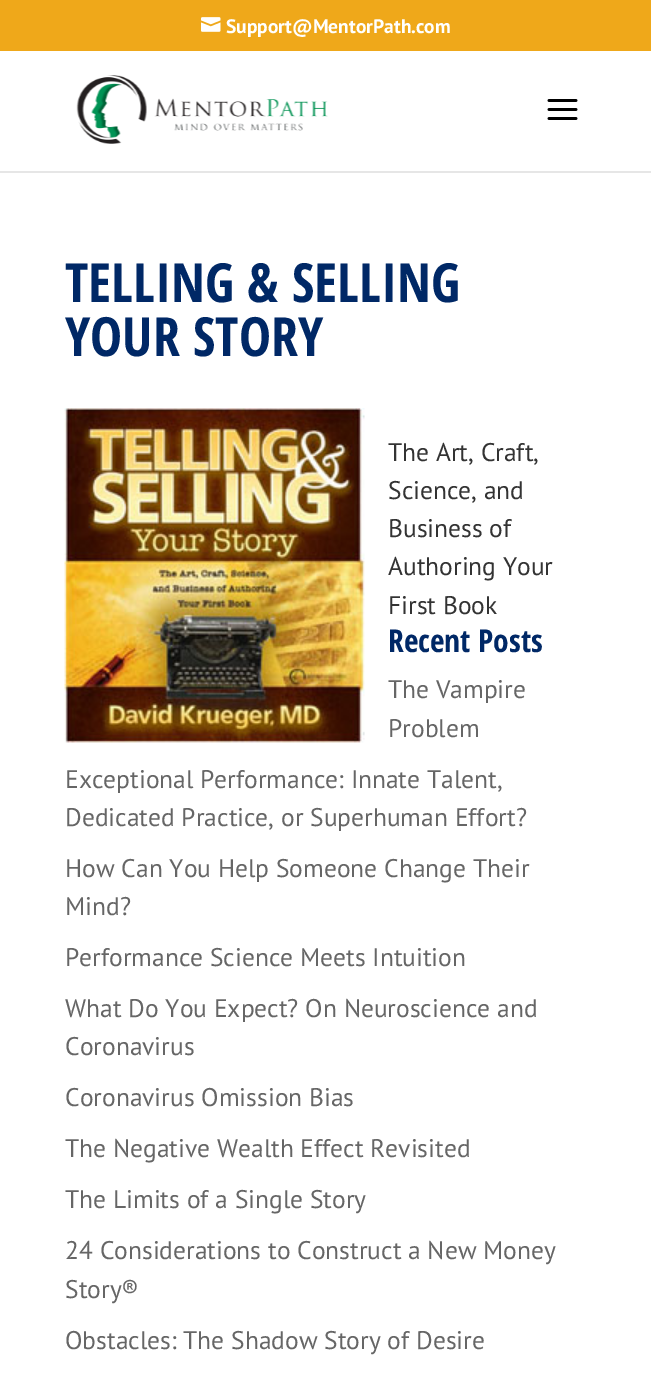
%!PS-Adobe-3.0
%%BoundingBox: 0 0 651 1399
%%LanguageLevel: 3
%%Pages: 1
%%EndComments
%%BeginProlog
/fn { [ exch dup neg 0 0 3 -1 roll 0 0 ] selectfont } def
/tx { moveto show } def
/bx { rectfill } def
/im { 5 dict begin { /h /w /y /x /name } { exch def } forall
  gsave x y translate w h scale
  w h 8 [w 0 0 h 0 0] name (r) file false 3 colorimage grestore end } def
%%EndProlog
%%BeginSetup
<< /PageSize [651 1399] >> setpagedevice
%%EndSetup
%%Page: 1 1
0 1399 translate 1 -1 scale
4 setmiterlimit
1 setgray
0 0 651 1399 bx
0.937 0.659 0.102 setrgbcolor
0 0 651 51 bx
(image0.raw) 201 17 20 15 im
/PTSans-Bold 19.5 fn
1 setgray
(Support@MentorPath.com) 226 33 tx
0.902 setgray
0 171 651 2 bx
(image1.raw) 76 75 252 69 im
(image2.raw) 547 99 31 21 im
/OpenSansCondensed-Bold 54 fn
0 0.157 0.4 setrgbcolor
(TELLING & SELLING) 65 302 tx
(YOUR STORY) 65 356 tx
(image3.raw) 64 408 301 335 im
/PTSans-Regular 25.5 fn
0.2 setgray
(The Art, Craft,) 388 461 tx
(Science, and) 388 499 tx
(Business of) 388 537 tx
(Authoring Your) 388 575 tx
(First Book) 388 614 tx
/OpenSansCondensed-Bold 31.5 fn
0 0.157 0.4 setrgbcolor
(Recent Posts) 388 652 tx
/PTSans-Regular 25.5 fn
0.4 setgray
(The Vampire) 388 698 tx
(Problem) 388 737 tx
(Exceptional Performance: Innate Talent,) 65 788 tx
(Dedicated Practice, or Superhuman Effort?) 65 826 tx
(How Can You Help Someone Change Their) 65 877 tx
(Mind?) 65 915 tx
(Performance Science Meets Intuition) 65 966 tx
(What Do You Expect? On Neuroscience and) 65 1017 tx
(Coronavirus) 65 1055 tx
(Coronavirus Omission Bias) 65 1106 tx
(The Negative Wealth Effect Revisited) 65 1157 tx
(The Limits of a Single Story) 65 1208 tx
(24 Considerations to Construct a New Money) 65 1259 tx
(Story®) 65 1298 tx
(Obstacles: The Shadow Story of Desire) 65 1349 tx
showpage
%%EOF
